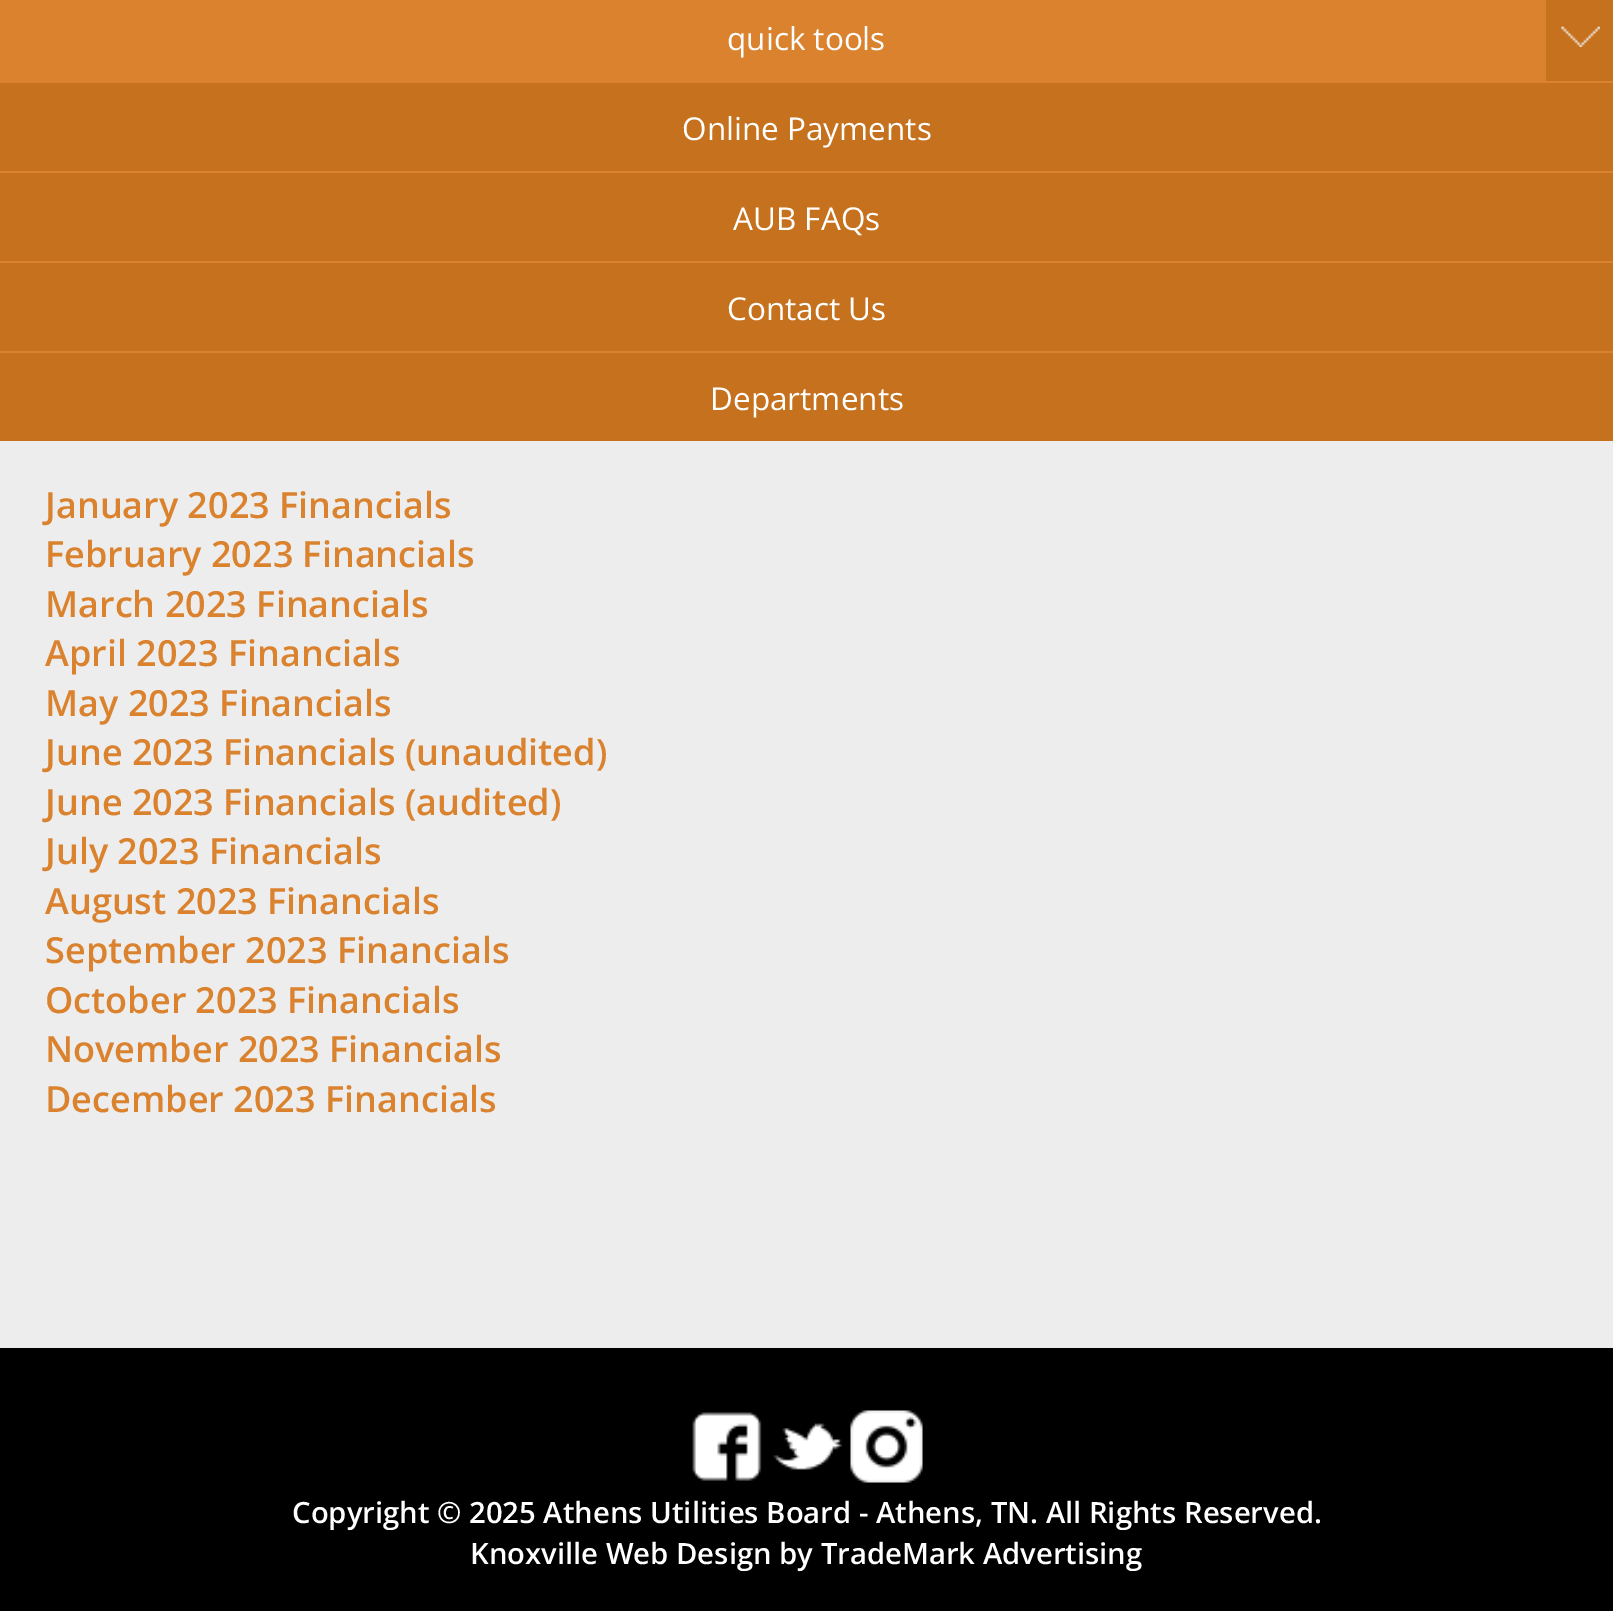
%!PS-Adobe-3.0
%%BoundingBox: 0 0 1613 1611
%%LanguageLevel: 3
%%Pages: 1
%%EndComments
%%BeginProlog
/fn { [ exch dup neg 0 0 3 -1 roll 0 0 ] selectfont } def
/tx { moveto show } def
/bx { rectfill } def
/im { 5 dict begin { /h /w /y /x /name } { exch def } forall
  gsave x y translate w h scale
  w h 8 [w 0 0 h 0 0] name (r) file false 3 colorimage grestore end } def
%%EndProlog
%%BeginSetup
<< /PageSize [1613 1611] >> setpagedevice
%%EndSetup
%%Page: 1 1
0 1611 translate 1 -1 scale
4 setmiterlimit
0.929 setgray
0 0 1613 1611 bx
0.855 0.51 0.176 setrgbcolor
0 0 1546 81 bx
/OpenSans-Regular 31.5 fn
1 setgray
(quick tools) 727 50 tx
0.776 0.443 0.118 setrgbcolor
1546 0 67 81 bx
(image0.raw) 1561 26 39 21 im
0 83 1613 88 bx
0.855 0.51 0.176 setrgbcolor
0 81 1613 2 bx
1 setgray
(Online Payments) 682 140 tx
0.776 0.443 0.118 setrgbcolor
0 173 1613 88 bx
0.855 0.51 0.176 setrgbcolor
0 171 1613 2 bx
1 setgray
(AUB FAQs) 733 230 tx
0.776 0.443 0.118 setrgbcolor
0 263 1613 88 bx
0.855 0.51 0.176 setrgbcolor
0 261 1613 2 bx
1 setgray
(Contact Us) 727 320 tx
0.776 0.443 0.118 setrgbcolor
0 353 1613 88 bx
0.855 0.51 0.176 setrgbcolor
0 351 1613 2 bx
1 setgray
(Departments) 710 410 tx
/OpenSans-SemiBold 36 fn
0.855 0.51 0.176 setrgbcolor
(January 2023 Financials) 45 518 tx
(February 2023 Financials) 45 567 tx
(March 2023 Financials) 45 617 tx
(April 2023 Financials) 45 666 tx
(May 2023 Financials) 45 716 tx
(June 2023 Financials \(unaudited\)) 45 765 tx
(June 2023 Financials \(audited\)) 45 815 tx
(July 2023 Financials) 45 864 tx
(August 2023 Financials) 45 914 tx
(September 2023 Financials) 45 963 tx
(October 2023 Financials) 45 1013 tx
(November 2023 Financials) 45 1062 tx
(December 2023 Financials) 45 1112 tx
0 setgray
0 1348 1613 263 bx
(image1.raw) 692 1412 70 69 im
(image2.raw) 773 1423 69 47 im
(image3.raw) 850 1410 73 73 im
/OpenSans-SemiBold 29.25 fn
1 setgray
(Copyright © 2025 Athens Utilities Board - Athens, TN. All Rights Reserved.) 292 1523 tx
(Knoxville Web Design by TradeMark Advertising) 470 1564 tx
showpage
%%EOF
